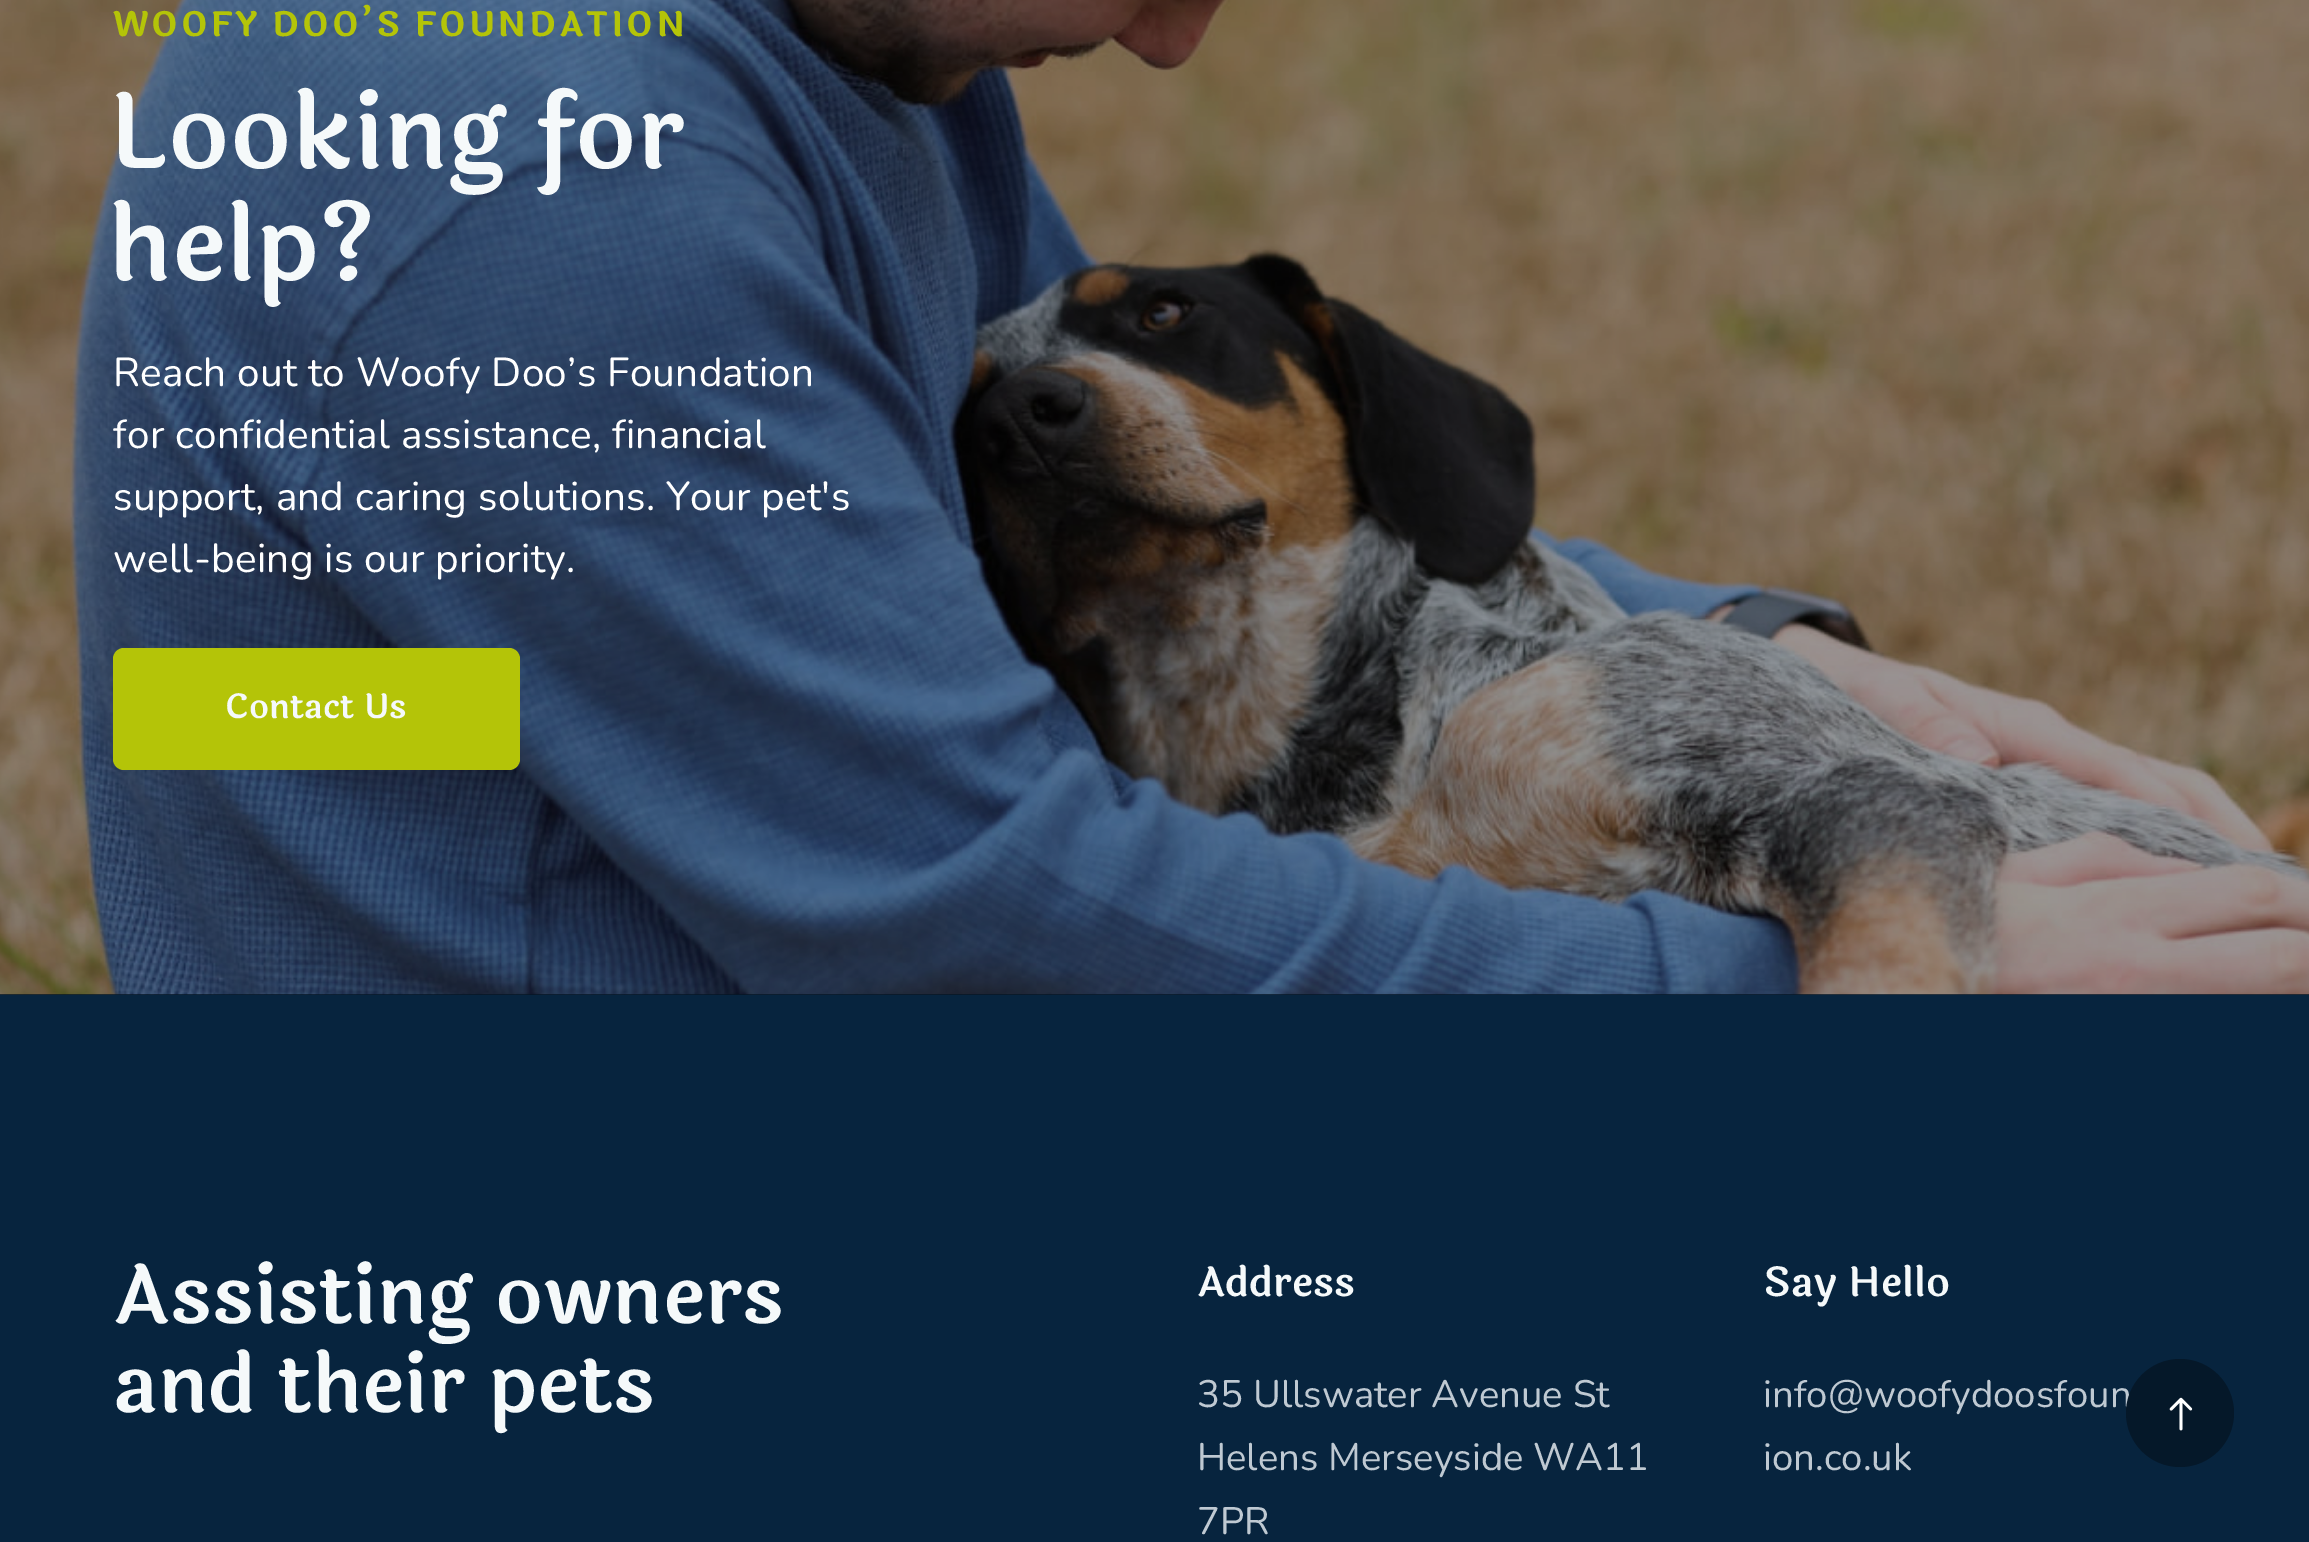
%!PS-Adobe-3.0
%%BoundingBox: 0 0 2309 1542
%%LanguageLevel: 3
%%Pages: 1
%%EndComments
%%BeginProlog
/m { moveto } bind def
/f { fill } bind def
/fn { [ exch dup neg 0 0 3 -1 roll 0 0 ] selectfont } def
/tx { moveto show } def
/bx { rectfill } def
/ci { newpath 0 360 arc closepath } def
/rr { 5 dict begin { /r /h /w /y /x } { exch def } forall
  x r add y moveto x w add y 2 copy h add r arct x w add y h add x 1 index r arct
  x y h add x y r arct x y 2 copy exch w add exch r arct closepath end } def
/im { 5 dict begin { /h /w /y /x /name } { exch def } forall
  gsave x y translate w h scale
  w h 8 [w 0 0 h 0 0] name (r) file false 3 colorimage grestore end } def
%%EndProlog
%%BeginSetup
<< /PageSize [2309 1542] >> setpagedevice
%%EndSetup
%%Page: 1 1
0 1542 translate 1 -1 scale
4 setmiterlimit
0.016 0.086 0.145 setrgbcolor
0 0 2309 1542 bx
(image0.raw) 0 0 2309 995 im
/Laila-Bold 33.75 fn
0.706 0.769 0.031 setrgbcolor
113 36 m 2.7 0 (WOOFY DOO’S FOUNDATION) ashow
/Laila-SemiBold 103.5 fn
0.961 0.976 0.98 setrgbcolor
(Looking for) 108 168 tx
(help?) 108 280 tx
/Nunito-Regular 40.5 fn
1 setgray
113 386 m 0.25 0 (Reach out to Woofy Doo’s Foundation) ashow
113 448 m 0.25 0 (for confidential assistance, financial) ashow
113 510 m 0.25 0 (support, and caring solutions. Your pet's) ashow
113 572 m 0.25 0 (well-being is our priority.) ashow
0.706 0.769 0.031 setrgbcolor
113 648 407 122 11 rr f
/Laila-SemiBold 33.75 fn
0.961 0.976 0.98 setrgbcolor
(Contact Us) 225 718 tx
0.027 0.141 0.243 setrgbcolor
0 995 2309 547 bx
/Laila-SemiBold 81 fn
0.961 0.976 0.98 setrgbcolor
(Assisting owners) 113 1323 tx
(and their pets) 113 1412 tx
/Laila-SemiBold 40.5 fn
(Address) 1197 1296 tx
/Nunito-Regular 38.25 fn
0.749 0.788 0.824 setrgbcolor
(35 Ullswater Avenue St) 1197 1407 tx
(Helens Merseyside WA11) 1197 1470 tx
(7PR) 1197 1534 tx
/Laila-SemiBold 40.5 fn
0.961 0.976 0.98 setrgbcolor
(Say Hello) 1763 1296 tx
/Nunito-Regular 38.25 fn
0.749 0.788 0.824 setrgbcolor
(info@woofydoosfoun) 1763 1407 tx
(ion.co.uk) 1763 1470 tx
0.02 0.094 0.161 setrgbcolor
2180 1413 54 ci f
(image1.raw) 2169 1397 24 34 im
showpage
%%EOF
